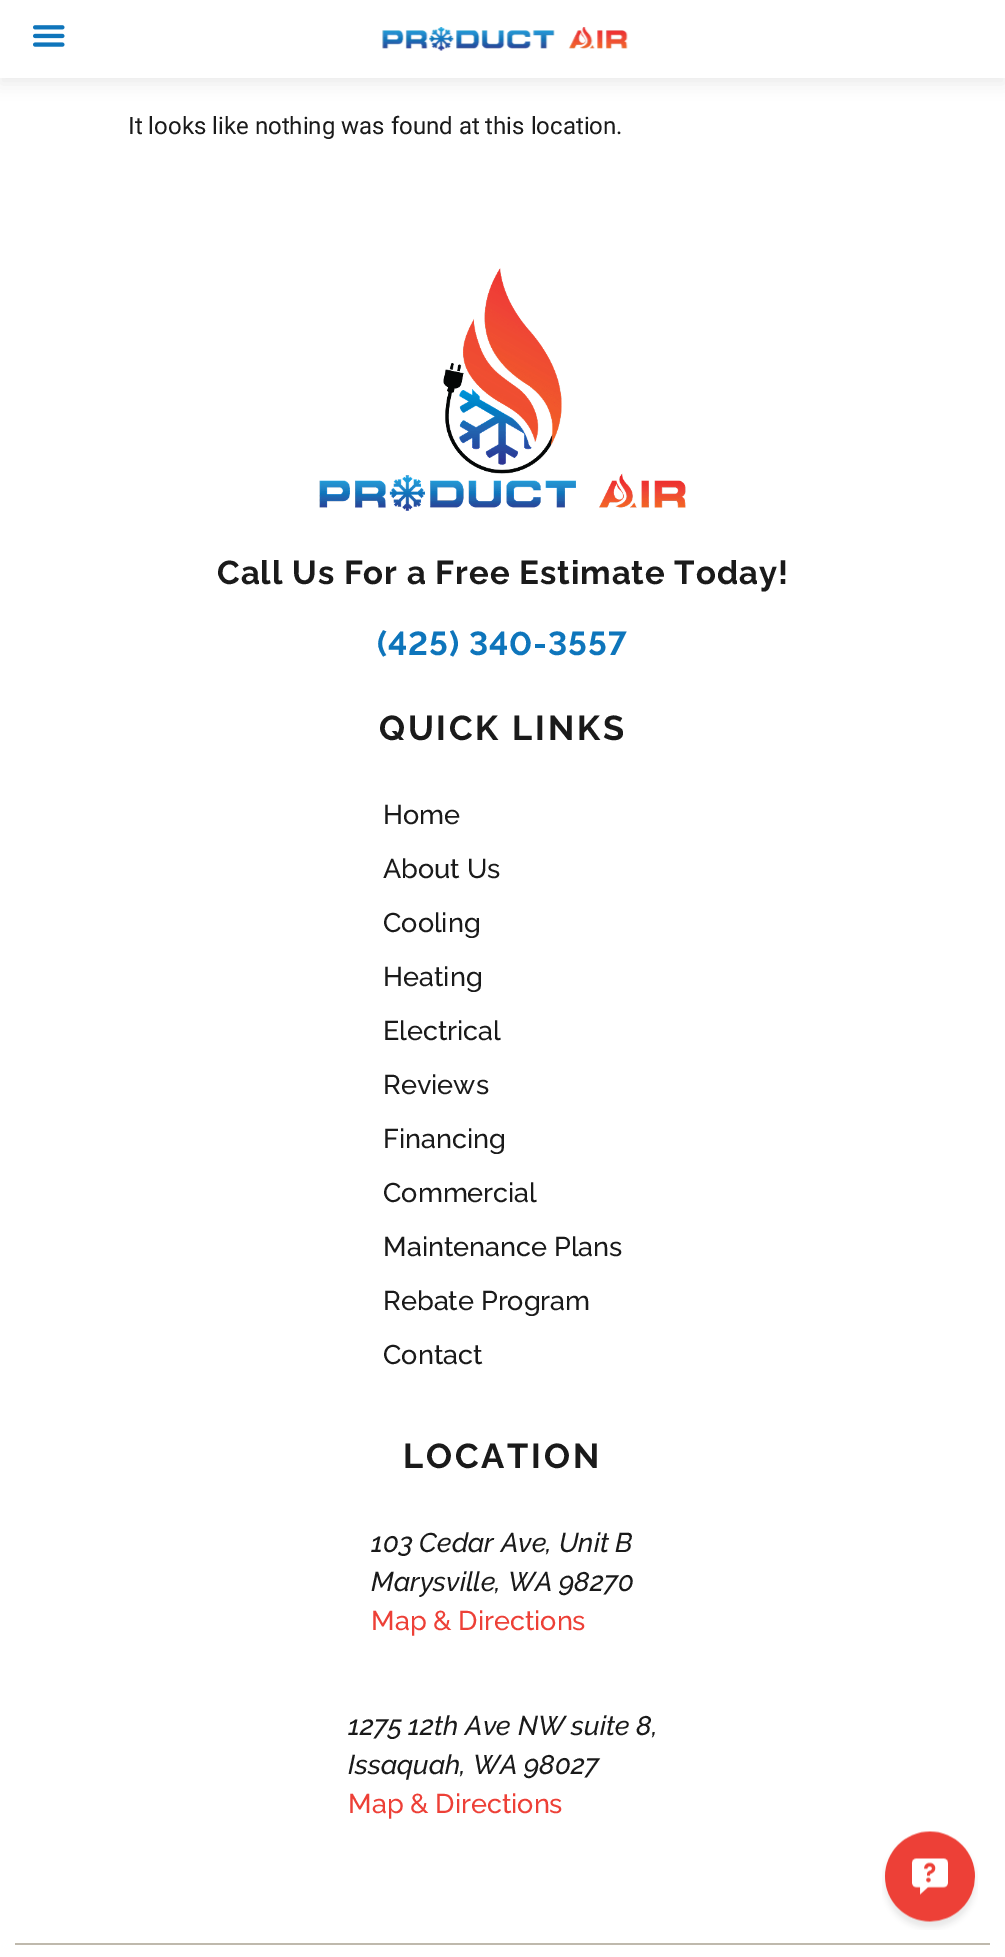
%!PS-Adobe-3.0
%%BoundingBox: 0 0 1005 1957
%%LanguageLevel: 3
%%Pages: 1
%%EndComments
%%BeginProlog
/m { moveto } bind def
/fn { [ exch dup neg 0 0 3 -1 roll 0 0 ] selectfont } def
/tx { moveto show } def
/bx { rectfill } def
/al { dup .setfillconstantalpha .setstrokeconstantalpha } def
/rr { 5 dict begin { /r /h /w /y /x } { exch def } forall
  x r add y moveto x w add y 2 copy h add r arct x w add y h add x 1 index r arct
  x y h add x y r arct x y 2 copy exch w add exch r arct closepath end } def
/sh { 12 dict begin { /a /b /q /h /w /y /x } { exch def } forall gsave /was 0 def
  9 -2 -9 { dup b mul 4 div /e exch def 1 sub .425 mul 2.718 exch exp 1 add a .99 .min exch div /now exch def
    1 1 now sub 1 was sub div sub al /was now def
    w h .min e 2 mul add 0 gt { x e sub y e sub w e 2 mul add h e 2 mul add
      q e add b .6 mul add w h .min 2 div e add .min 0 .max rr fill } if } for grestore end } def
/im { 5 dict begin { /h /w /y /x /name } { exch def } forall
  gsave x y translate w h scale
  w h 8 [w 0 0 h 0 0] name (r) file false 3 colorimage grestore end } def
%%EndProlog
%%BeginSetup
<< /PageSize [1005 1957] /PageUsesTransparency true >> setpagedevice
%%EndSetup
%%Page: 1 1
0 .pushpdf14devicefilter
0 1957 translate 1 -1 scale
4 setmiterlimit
1 setgray
0 0 1005 1957 bx
0.188 setgray
0 6 1005 78 0 7.5 0.09 sh
1 setgray
0 0 1005 78 bx
(image0.raw) 33 25 32 22 im
(image1.raw) 382 27 246 24 im
/Roboto-Regular 24 fn
0.102 setgray
(It looks like nothing was found at this location.) 128 134 tx
(image2.raw) 319 268 367 243 im
/Raleway-Bold 33 fn
217 584 m 0.9 0 (Call Us For a Free Estimate Today!) ashow
/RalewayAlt-Bold 33 fn
0.055 0.459 0.733 setrgbcolor
377 655 m 0.9 0 (\(425\) 340-3557) ashow
/Raleway-Bold 34.5 fn
0.102 setgray
379 740 m 2.75 0 (QUICK LINKS) ashow
/Raleway-Medium 27 fn
(Home) 383 824 tx
(About Us) 383 878 tx
(Cooling) 383 932 tx
(Heating) 383 986 tx
(Electrical) 383 1040 tx
(Reviews) 383 1094 tx
(Financing) 383 1148 tx
(Commercial) 383 1202 tx
(Maintenance Plans) 383 1256 tx
(Rebate Program) 383 1310 tx
(Contact) 383 1364 tx
/Raleway-Bold 34.5 fn
403 1468 m 2.75 0 (LOCATION) ashow
/Raleway-MediumItalic 27 fn
(103 Cedar Ave, Unit B) 371 1552 tx
(Marysville, WA 98270) 371 1591 tx
/Raleway-Medium 27 fn
0.929 0.251 0.216 setrgbcolor
(Map & Directions) 371 1630 tx
/Raleway-MediumItalic 27 fn
0.102 setgray
(1275 12th Ave NW suite 8,) 348 1735 tx
(Issaquah, WA 98027) 348 1774 tx
/Raleway-Medium 27 fn
0.929 0.251 0.216 setrgbcolor
(Map & Directions) 348 1813 tx
0.749 0.725 0.678 setrgbcolor
15 1943 975 2 bx
(image3.raw) 882 1831 96 99 im
.poppdf14devicefilter showpage
%%EOF
